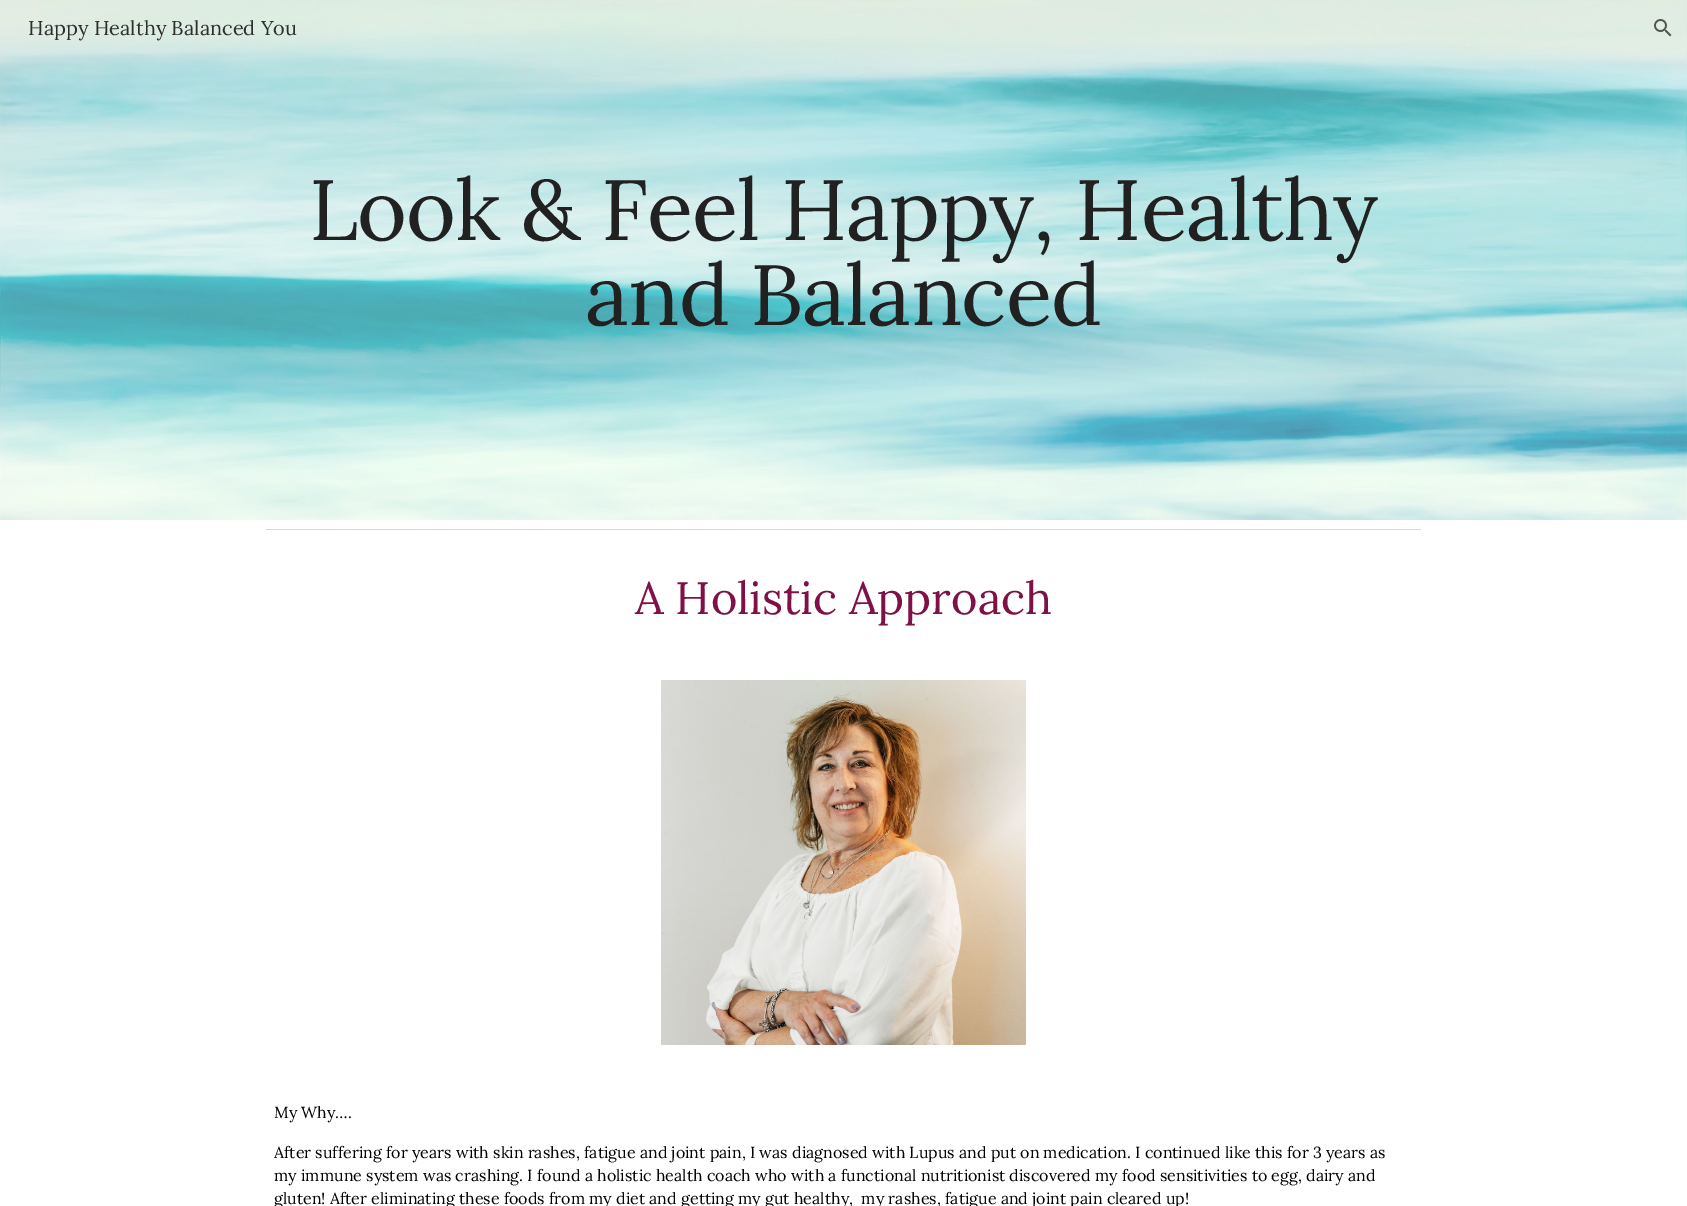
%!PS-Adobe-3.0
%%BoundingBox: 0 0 1687 1206
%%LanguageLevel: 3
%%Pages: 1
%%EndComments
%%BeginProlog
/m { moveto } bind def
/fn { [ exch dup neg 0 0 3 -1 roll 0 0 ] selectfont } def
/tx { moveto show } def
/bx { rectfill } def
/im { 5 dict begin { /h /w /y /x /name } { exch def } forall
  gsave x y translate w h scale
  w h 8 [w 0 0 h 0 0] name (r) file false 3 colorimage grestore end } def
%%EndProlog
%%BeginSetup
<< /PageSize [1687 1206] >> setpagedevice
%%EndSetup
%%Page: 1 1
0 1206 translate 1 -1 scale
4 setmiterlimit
1 setgray
0 0 1687 1206 bx
(image1.raw) 0 0 1687 520 im
/Lora-Regular 20 fn
0.173 0.184 0.176 setrgbcolor
(Happy Healthy Balanced You) 28 35 tx
(image0.raw) 1654 19 18 18 im
/Lora-Regular 85.3 fn
0.129 setgray
309 240 m -1 0 (Look & Feel Happy, Healthy) ashow
585 325 m -1 0 (and Balanced) ashow
0.851 setgray
266 529 1155 1 bx
/Lora-Regular 45.25 fn
0.498 0.067 0.275 setrgbcolor
(A Holistic Approach) 635 614 tx
(image2.raw) 661 680 365 365 im
/Lora-Regular 16 fn
0 setgray
(My Why….) 274 1118 tx
(After suffering for years with skin rashes, fatigue and joint pain, I was diagnosed with Lupus and put on medication. I continued like this for 3 years as) 274 1158 tx
(my immune system was crashing. I found a holistic health coach who with a functional nutritionist discovered my food sensitivities to egg, dairy and) 274 1181 tx
(gluten! After eliminating these foods from my diet and getting my gut healthy,  my rashes, fatigue and joint pain cleared up!) 274 1204 tx
showpage
%%EOF
